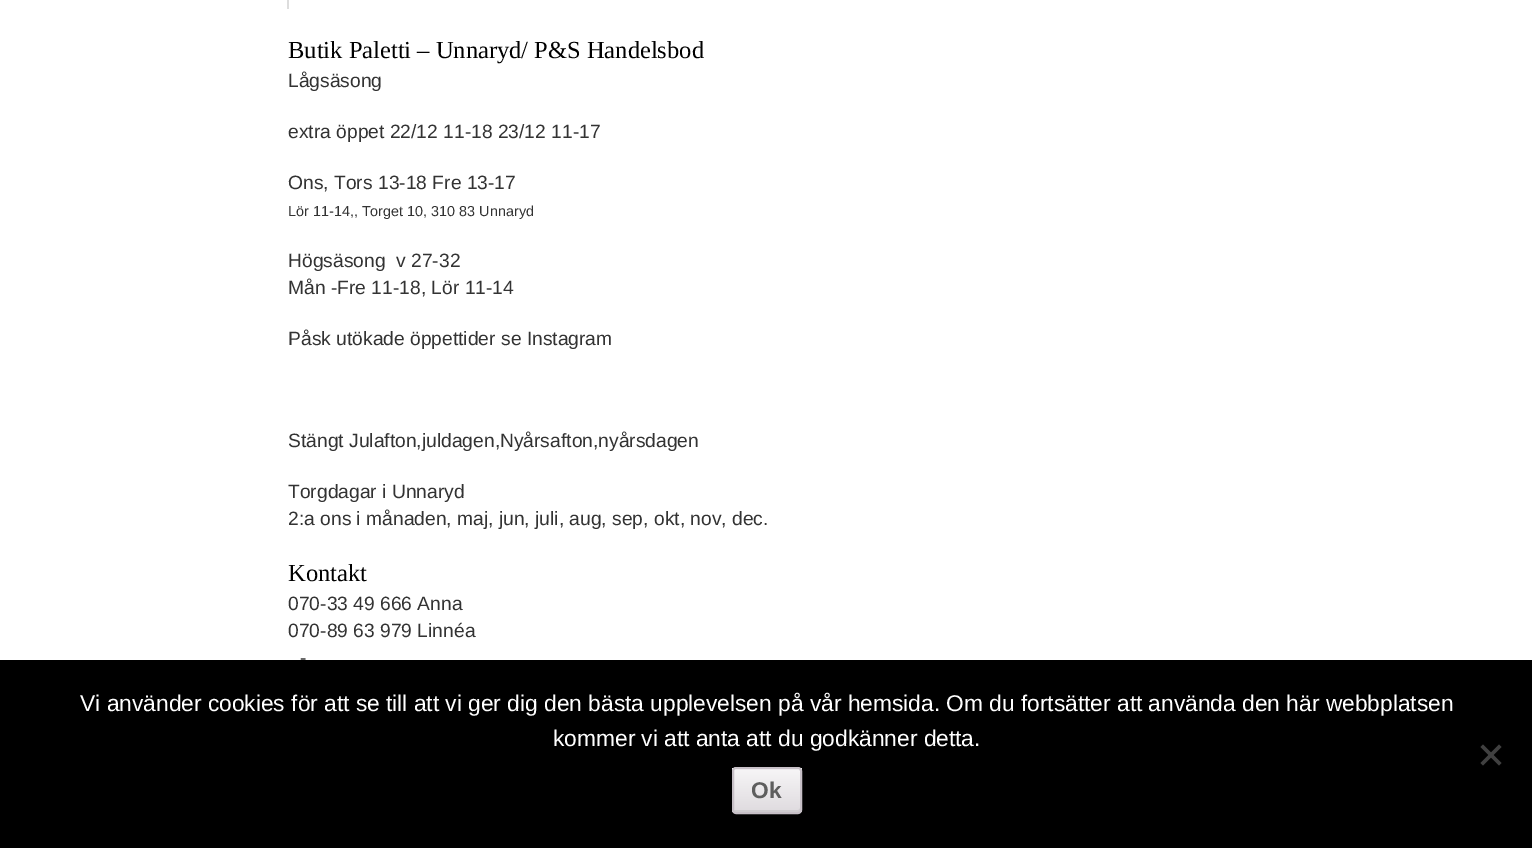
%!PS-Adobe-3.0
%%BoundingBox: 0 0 1532 848
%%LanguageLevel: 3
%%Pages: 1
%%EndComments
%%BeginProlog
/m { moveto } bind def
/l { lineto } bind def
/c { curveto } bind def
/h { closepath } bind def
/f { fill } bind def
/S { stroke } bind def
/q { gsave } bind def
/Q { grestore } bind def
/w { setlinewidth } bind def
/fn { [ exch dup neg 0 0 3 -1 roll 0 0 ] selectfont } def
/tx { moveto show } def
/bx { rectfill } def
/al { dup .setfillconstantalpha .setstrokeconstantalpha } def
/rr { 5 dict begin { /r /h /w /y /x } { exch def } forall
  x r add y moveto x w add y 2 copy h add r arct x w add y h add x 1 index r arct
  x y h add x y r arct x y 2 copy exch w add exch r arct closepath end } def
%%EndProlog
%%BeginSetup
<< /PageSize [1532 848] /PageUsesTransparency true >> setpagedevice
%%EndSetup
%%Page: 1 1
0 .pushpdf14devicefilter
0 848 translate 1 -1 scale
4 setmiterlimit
1 setgray
0 0 1532 848 bx
0.867 setgray
287 0 2 9 bx
/LiberationSerif-Regular 24.5 fn
0 setgray
(Butik Paletti – Unnaryd/ P&S Handelsbod) 288 58 tx
/LiberationSans-Regular 19.25 fn
0.2 setgray
(Lågsäsong) 288 87 tx
(extra öppet 22/12 11-18 23/12 11-17) 288 138 tx
(Ons, Tors 13-18 Fre 13-17) 288 189 tx
/LiberationSans-Regular 14.4 fn
(Lör 11-14,, Torget 10, 310 83 Unnaryd) 288 216 tx
/LiberationSans-Regular 19.25 fn
(Högsäsong  v 27-32) 288 267 tx
(Mån -Fre 11-18, Lör 11-14) 288 294 tx
(Påsk utökade öppettider se Instagram) 288 345 tx
(Stängt Julafton,juldagen,Nyårsafton,nyårsdagen) 288 447 tx
(Torgdagar i Unnaryd) 288 498 tx
(2:a ons i månaden, maj, jun, juli, aug, sep, okt, nov, dec.) 288 525 tx
/LiberationSerif-Regular 24.5 fn
0 setgray
(Kontakt) 288 581 tx
/LiberationSans-Regular 19.25 fn
0.2 setgray
(070-33 49 666 Anna) 288 610 tx
(070-89 63 979 Linnéa) 288 637 tx
(-) 300 664 tx
0 setgray
0 660 1532 188 bx
/LiberationSans-Regular 22.75 fn
1 setgray
(Vi använder cookies för att se till att vi ger dig den bästa upplevelsen på vår hemsida. Om du fortsätter att använda den här webbplatsen) 80 711 tx
(kommer vi att anta att du godkänner detta.) 553 746 tx
0.251 setgray
1499 744.5 m 1501.5 747 l 1483 765.5 l 1480.5 763 l h f
1480.5 747 m 1483 744.5 l 1501.5 763 l 1499 765.5 l h f
q
732 767 70 47 4 rr clip newpath
q 732 768 m 802 768 l 802 812 l 732 812 l h clip newpath
<< /ShadingType 2 /ColorSpace /DeviceRGB /Coords [767 768 767 812] /Extend [true true] /Function << /FunctionType 2 /Domain [0 1] /C0 [0.969 0.965 0.969] /C1 [0.875 0.859 0.875] /N 1 >> >> shfill Q
Q
0.3 al
1 setgray
735 770 m 799 770 l 800 772 l 800 765 795 768 788 768 c 746 768 l 738 768 733 765 733 772 c 733 771 734 770 735 770 c h f
0.07 al
0 setgray
733 808 m 733 815 738 812 746 812 c 788 812 l 795 812 800 815 800 808 c 800 809 799 810 798 810 c 734 810 l h f
1 al
0.78 0.753 0.78 setrgbcolor
2 w
733 768 68 45 3 rr S
/LiberationSans-Bold 22.75 fn
0.369 setgray
(Ok) 751 798 tx
.poppdf14devicefilter showpage
%%EOF
